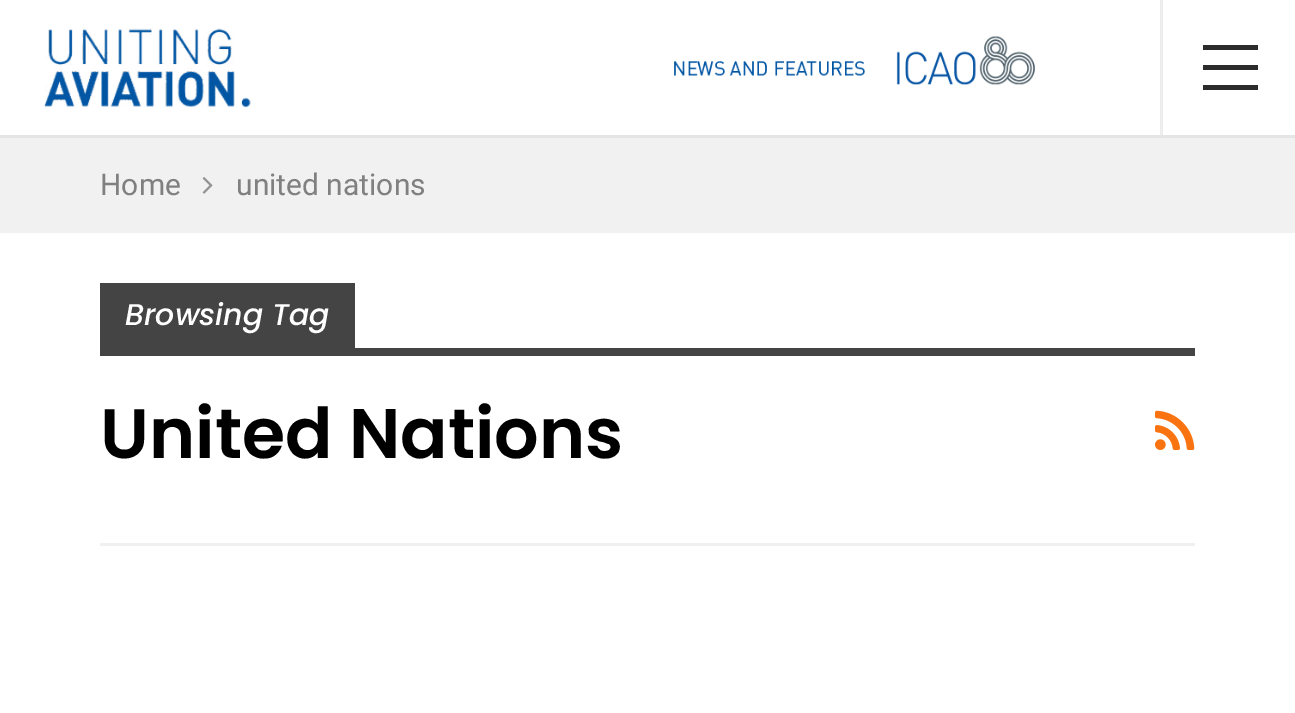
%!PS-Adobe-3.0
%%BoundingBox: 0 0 1295 713
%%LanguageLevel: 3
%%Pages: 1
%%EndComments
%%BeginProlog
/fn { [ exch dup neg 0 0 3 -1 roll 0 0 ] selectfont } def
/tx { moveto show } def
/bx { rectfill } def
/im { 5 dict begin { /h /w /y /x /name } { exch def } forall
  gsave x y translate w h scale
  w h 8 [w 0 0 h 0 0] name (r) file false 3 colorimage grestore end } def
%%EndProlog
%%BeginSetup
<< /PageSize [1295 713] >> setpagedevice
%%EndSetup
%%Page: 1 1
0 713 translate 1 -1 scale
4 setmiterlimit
1 setgray
0 0 1295 713 bx
0.898 setgray
0 135 1295 3 bx
(image0.raw) 44 28 991 80 im
0.929 setgray
1160 0 3 135 bx
0.173 setgray
1203 65 55 5 bx
1203 45 55 5 bx
1203 85 55 5 bx
0.945 setgray
0 138 1295 95 bx
/Roboto-Regular 30 fn
0.502 setgray
(Home) 100 195 tx
(image1.raw) 202 177 11 17 im
(united nations) 236 195 tx
0.941 setgray
100 543 1095 3 bx
0.267 setgray
100 283 255 65 bx
/Poppins-MediumItalic 30 fn
1 setgray
(Browsing Tag) 125 325 tx
0.267 setgray
100 348 1095 8 bx
/Poppins-SemiBold 70 fn
0 setgray
(United Nations) 100 458 tx
(image2.raw) 1155 410 40 40 im
showpage
%%EOF
